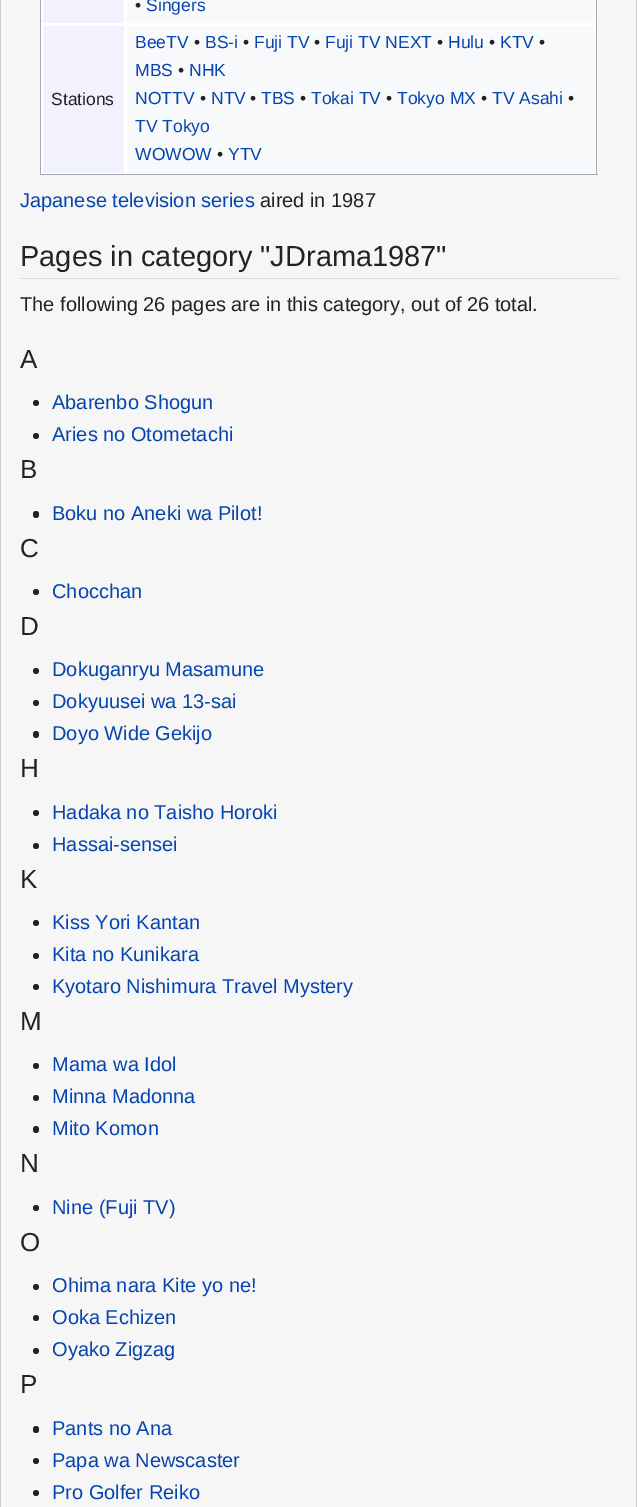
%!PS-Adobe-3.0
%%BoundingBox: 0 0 637 1507
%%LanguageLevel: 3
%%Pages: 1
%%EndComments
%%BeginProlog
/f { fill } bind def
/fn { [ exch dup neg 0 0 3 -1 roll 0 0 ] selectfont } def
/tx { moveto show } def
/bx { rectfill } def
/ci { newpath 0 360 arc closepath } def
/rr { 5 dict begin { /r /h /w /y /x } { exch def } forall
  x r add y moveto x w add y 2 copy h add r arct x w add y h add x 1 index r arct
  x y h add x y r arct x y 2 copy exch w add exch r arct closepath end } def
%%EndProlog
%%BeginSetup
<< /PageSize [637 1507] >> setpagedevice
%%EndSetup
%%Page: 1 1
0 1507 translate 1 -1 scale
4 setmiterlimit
0.965 setgray
0 0 637 1507 bx
0.8 setgray
636 0 1 1507 bx
0 0 1 1507 bx
0.973 0.976 0.98 setrgbcolor
127 0 471 174 bx
0.635 0.663 0.694 setrgbcolor
596 0 1 175 bx
40 174 558 1 bx
40 0 1 175 bx
0.949 0.949 1 setrgbcolor
43 0 81 23 bx
1 setgray
124 23 472 3 bx
595 0 1 174 bx
124 173 472 1 bx
124 23 3 151 bx
41 23 85 3 bx
124 0 3 25 bx
/LiberationSans-Regular 17.5 fn
0.133 setgray
(•) 135 11 tx
0.024 0.271 0.678 setrgbcolor
(Singers) 146 11 tx
0.949 0.949 1 setrgbcolor
43 26 81 147 bx
1 setgray
41 173 85 1 bx
41 0 2 174 bx
0.133 setgray
(Stations) 51 105 tx
0.024 0.271 0.678 setrgbcolor
(BeeTV) 135 48 tx
0.133 setgray
(•) 194 48 tx
0.024 0.271 0.678 setrgbcolor
(BS-i) 205 48 tx
0.133 setgray
(•) 243 48 tx
0.024 0.271 0.678 setrgbcolor
(Fuji TV) 254 48 tx
0.133 setgray
(•) 314 48 tx
0.024 0.271 0.678 setrgbcolor
(Fuji TV NEXT) 325 48 tx
0.133 setgray
(•) 437 48 tx
0.024 0.271 0.678 setrgbcolor
(Hulu) 448 48 tx
0.133 setgray
(•) 489 48 tx
0.024 0.271 0.678 setrgbcolor
(KTV) 500 48 tx
0.133 setgray
(•) 539 48 tx
0.024 0.271 0.678 setrgbcolor
(MBS) 135 76 tx
0.133 setgray
(•) 178 76 tx
0.024 0.271 0.678 setrgbcolor
(NHK) 189 76 tx
(NOTTV) 135 104 tx
0.133 setgray
(•) 200 104 tx
0.024 0.271 0.678 setrgbcolor
(NTV) 211 104 tx
0.133 setgray
(•) 250 104 tx
0.024 0.271 0.678 setrgbcolor
(TBS) 261 104 tx
0.133 setgray
(•) 300 104 tx
0.024 0.271 0.678 setrgbcolor
(Tokai TV) 311 104 tx
0.133 setgray
(•) 386 104 tx
0.024 0.271 0.678 setrgbcolor
(Tokyo MX) 397 104 tx
0.133 setgray
(•) 481 104 tx
0.024 0.271 0.678 setrgbcolor
(TV Asahi) 492 104 tx
0.133 setgray
(•) 568 104 tx
0.024 0.271 0.678 setrgbcolor
(TV Tokyo) 135 132 tx
(WOWOW) 135 160 tx
0.133 setgray
(•) 217 160 tx
0.024 0.271 0.678 setrgbcolor
(YTV) 228 160 tx
/LiberationSans-Regular 20 fn
(Japanese television series) 20 207 tx
0.133 setgray
(aired in 1987) 260 207 tx
0.867 setgray
20 278 598 1 bx
/LiberationSans-Regular 29 fn
0.133 setgray
(Pages in category "JDrama1987") 20 266 tx
/LiberationSans-Regular 20 fn
(The following 26 pages are in this category, out of 26 total.) 20 311 tx
/LiberationSans-Regular 26 fn
(A) 20 368 tx
36 403 3 ci f
/LiberationSans-Regular 20 fn
0.024 0.271 0.678 setrgbcolor
(Abarenbo Shogun) 52 409 tx
0.133 setgray
36 436 3 ci f
0.024 0.271 0.678 setrgbcolor
(Aries no Otometachi) 52 441 tx
/LiberationSans-Regular 26 fn
0.133 setgray
(B) 20 478 tx
33 511 6 7 3 rr f
/LiberationSans-Regular 20 fn
0.024 0.271 0.678 setrgbcolor
(Boku no Aneki wa Pilot!) 52 520 tx
/LiberationSans-Regular 26 fn
0.133 setgray
(C) 20 557 tx
36 592 3 ci f
/LiberationSans-Regular 20 fn
0.024 0.271 0.678 setrgbcolor
(Chocchan) 52 598 tx
/LiberationSans-Regular 26 fn
0.133 setgray
(D) 20 635 tx
36 671 3 ci f
/LiberationSans-Regular 20 fn
0.024 0.271 0.678 setrgbcolor
(Dokuganryu Masamune) 52 676 tx
0.133 setgray
36 703 3 ci f
0.024 0.271 0.678 setrgbcolor
(Dokyuusei wa 13-sai) 52 708 tx
0.133 setgray
33 731 6 7 3 rr f
0.024 0.271 0.678 setrgbcolor
(Doyo Wide Gekijo) 52 740 tx
/LiberationSans-Regular 26 fn
0.133 setgray
(H) 20 777 tx
36 813 3 ci f
/LiberationSans-Regular 20 fn
0.024 0.271 0.678 setrgbcolor
(Hadaka no Taisho Horoki) 52 819 tx
0.133 setgray
36 846 3 ci f
0.024 0.271 0.678 setrgbcolor
(Hassai-sensei) 52 851 tx
/LiberationSans-Regular 26 fn
0.133 setgray
(K) 20 888 tx
36 923 3 ci f
/LiberationSans-Regular 20 fn
0.024 0.271 0.678 setrgbcolor
(Kiss Yori Kantan) 52 929 tx
0.133 setgray
36 956 3 ci f
0.024 0.271 0.678 setrgbcolor
(Kita no Kunikara) 52 961 tx
0.133 setgray
36 987 3 ci f
0.024 0.271 0.678 setrgbcolor
(Kyotaro Nishimura Travel Mystery) 52 993 tx
/LiberationSans-Regular 26 fn
0.133 setgray
(M) 20 1030 tx
36 1066 3 ci f
/LiberationSans-Regular 20 fn
0.024 0.271 0.678 setrgbcolor
(Mama wa Idol) 52 1071 tx
0.133 setgray
36 1098 3 ci f
0.024 0.271 0.678 setrgbcolor
(Minna Madonna) 52 1103 tx
0.133 setgray
33 1126 6 7 3 rr f
0.024 0.271 0.678 setrgbcolor
(Mito Komon) 52 1135 tx
/LiberationSans-Regular 26 fn
0.133 setgray
(N) 20 1172 tx
36 1208 3 ci f
/LiberationSans-Regular 20 fn
0.024 0.271 0.678 setrgbcolor
(Nine \(Fuji TV\)) 52 1214 tx
/LiberationSans-Regular 26 fn
0.133 setgray
(O) 20 1251 tx
36 1287 3 ci f
/LiberationSans-Regular 20 fn
0.024 0.271 0.678 setrgbcolor
(Ohima nara Kite yo ne!) 52 1292 tx
0.133 setgray
36 1318 3 ci f
0.024 0.271 0.678 setrgbcolor
(Ooka Echizen) 52 1324 tx
0.133 setgray
36 1351 3 ci f
0.024 0.271 0.678 setrgbcolor
(Oyako Zigzag) 52 1356 tx
/LiberationSans-Regular 26 fn
0.133 setgray
(P) 20 1393 tx
33 1426 6 7 3 rr f
/LiberationSans-Regular 20 fn
0.024 0.271 0.678 setrgbcolor
(Pants no Ana) 52 1435 tx
0.133 setgray
36 1461 3 ci f
0.024 0.271 0.678 setrgbcolor
(Papa wa Newscaster) 52 1467 tx
0.133 setgray
36 1493 3 ci f
0.024 0.271 0.678 setrgbcolor
(Pro Golfer Reiko) 52 1499 tx
showpage
%%EOF
